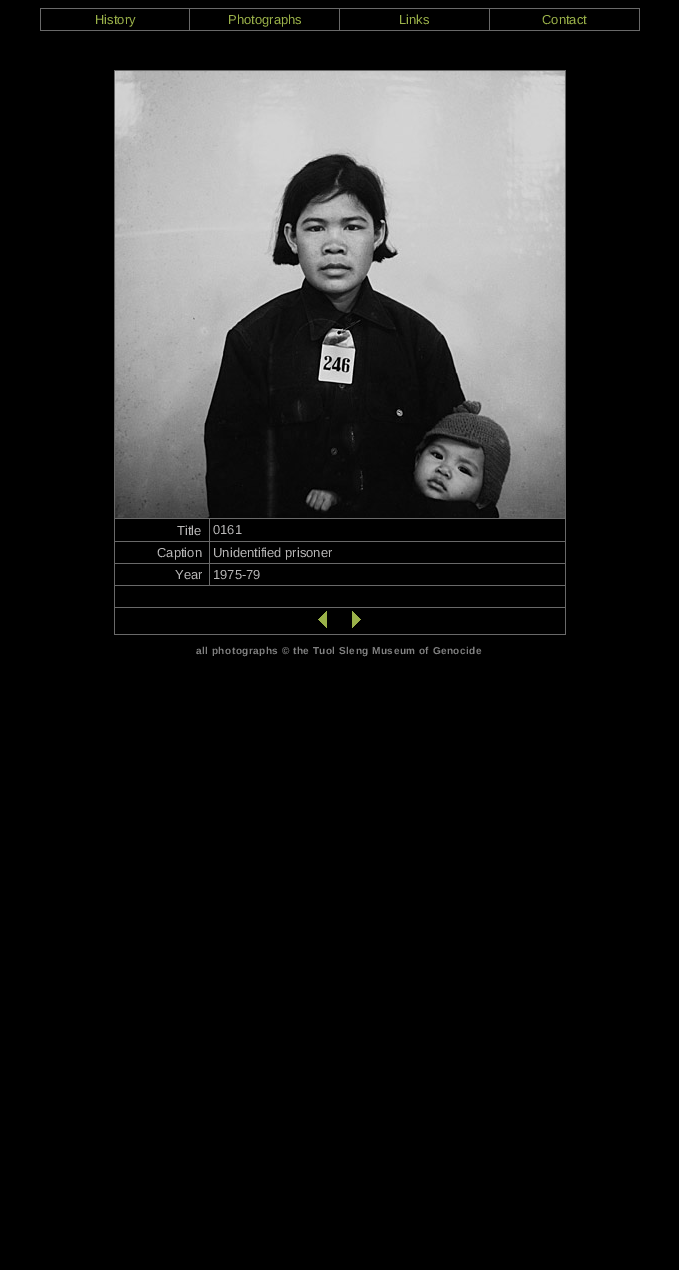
%!PS-Adobe-3.0
%%BoundingBox: 0 0 679 1270
%%LanguageLevel: 3
%%Pages: 1
%%EndComments
%%BeginProlog
/m { moveto } bind def
/fn { [ exch dup neg 0 0 3 -1 roll 0 0 ] selectfont } def
/tx { moveto show } def
/bx { rectfill } def
/im { 5 dict begin { /h /w /y /x /name } { exch def } forall
  gsave x y translate w h scale
  w h 8 [w 0 0 h 0 0] name (r) file false 3 colorimage grestore end } def
%%EndProlog
%%BeginSetup
<< /PageSize [679 1270] >> setpagedevice
%%EndSetup
%%Page: 1 1
0 1270 translate 1 -1 scale
4 setmiterlimit
0 setgray
0 0 679 1270 bx
0.412 setgray
40 8 600 1 bx
639 8 1 23 bx
40 30 600 1 bx
40 8 1 23 bx
/LiberationSans-Regular 13 fn
0.604 0.694 0.286 setrgbcolor
(History) 95 24 tx
0.412 setgray
189 8 1 23 bx
0.604 0.694 0.286 setrgbcolor
(Photographs) 228 24 tx
0.412 setgray
339 8 1 23 bx
0.604 0.694 0.286 setrgbcolor
(Links) 399 24 tx
0.412 setgray
489 8 1 23 bx
0.604 0.694 0.286 setrgbcolor
(Contact) 542 24 tx
0.412 setgray
114 70 452 1 bx
565 70 1 565 bx
114 634 452 1 bx
114 70 1 565 bx
(image0.raw) 115 71 450 447 im
209 518 357 1 bx
209 541 357 1 bx
209 563 357 1 bx
114 585 452 1 bx
209 563 1 23 bx
114 563 96 1 bx
209 541 1 23 bx
114 541 96 1 bx
209 518 1 24 bx
114 518 96 1 bx
0.722 0.718 0.718 setrgbcolor
(Title) 177 535 tx
(0161) 213 534 tx
(Caption) 157 557 tx
(Unidentified prisoner) 213 557 tx
(Year) 175 579 tx
(1975-79) 213 579 tx
0.412 setgray
114 607 452 1 bx
(image1.raw) 318 611 9 17 im
(image2.raw) 352 611 9 17 im
/LiberationSans-Bold 10 fn
0.502 setgray
196 654 m 0.5 0 (all photographs © the Tuol Sleng Museum of Genocide) ashow
showpage
%%EOF
